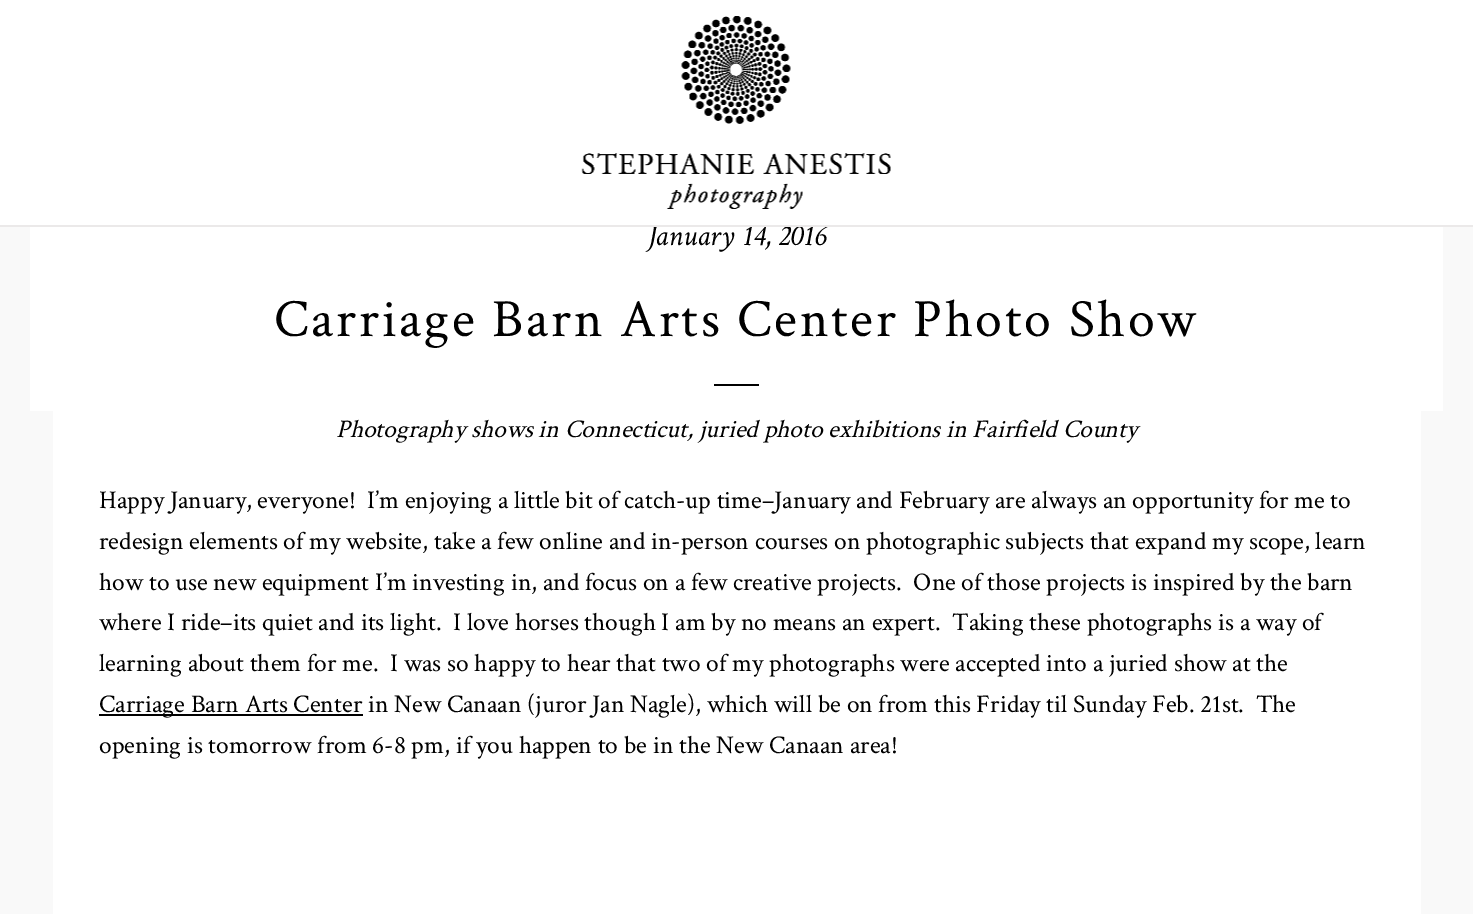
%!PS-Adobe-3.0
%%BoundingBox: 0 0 1473 914
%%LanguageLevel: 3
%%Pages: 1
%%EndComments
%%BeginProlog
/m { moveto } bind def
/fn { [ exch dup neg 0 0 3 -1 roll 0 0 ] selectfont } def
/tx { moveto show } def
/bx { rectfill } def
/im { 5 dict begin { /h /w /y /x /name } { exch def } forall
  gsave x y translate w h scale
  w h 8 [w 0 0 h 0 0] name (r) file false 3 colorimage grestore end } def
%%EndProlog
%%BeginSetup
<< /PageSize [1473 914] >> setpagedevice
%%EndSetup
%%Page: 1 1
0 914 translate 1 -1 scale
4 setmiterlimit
1 setgray
0 0 1473 914 bx
0.976 setgray
0 227 1473 687 bx
1 setgray
30 227 1413 184 bx
/CrimsonText-Italic 30 fn
0 setgray
(January 14, 2016) 648 245 tx
0.922 0.914 0.914 setrgbcolor
0 225 1473 2 bx
(image0.raw) 581 16 310 193 im
/CrimsonText-Regular 54 fn
0 setgray
274 336 m 2.7 0 (Carriage Barn Arts Center Photo Show) ashow
714 384 45 2 bx
1 setgray
53 411 1368 503 bx
/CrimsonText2-Italic 25.5 fn
0 setgray
(Photography shows in Connecticut, juried photo exhibitions in Fairfield County) 336 437 tx
/CrimsonText-Regular 25.5 fn
(Happy January, everyone!  I’m enjoying a little bit of catch-up time–January and February are always an opportunity for me to) 99 508 tx
(redesign elements of my website, take a few online and in-person courses on photographic subjects that expand my scope, learn) 99 549 tx
(how to use new equipment I’m investing in, and focus on a few creative projects.  One of those projects is inspired by the barn) 99 590 tx
(where I ride–its quiet and its light.  I love horses though I am by no means an expert.  Taking these photographs is a way of) 99 630 tx
(learning about them for me.  I was so happy to hear that two of my photographs were accepted into a juried show at the) 99 671 tx
99 714 264 2 bx
(Carriage Barn Arts Center in New Canaan \(juror Jan Nagle\), which will be on from this Friday til Sunday Feb. 21st.  The) 99 712 tx
(opening is tomorrow from 6-8 pm, if you happen to be in the New Canaan area!) 99 753 tx
showpage
%%EOF
